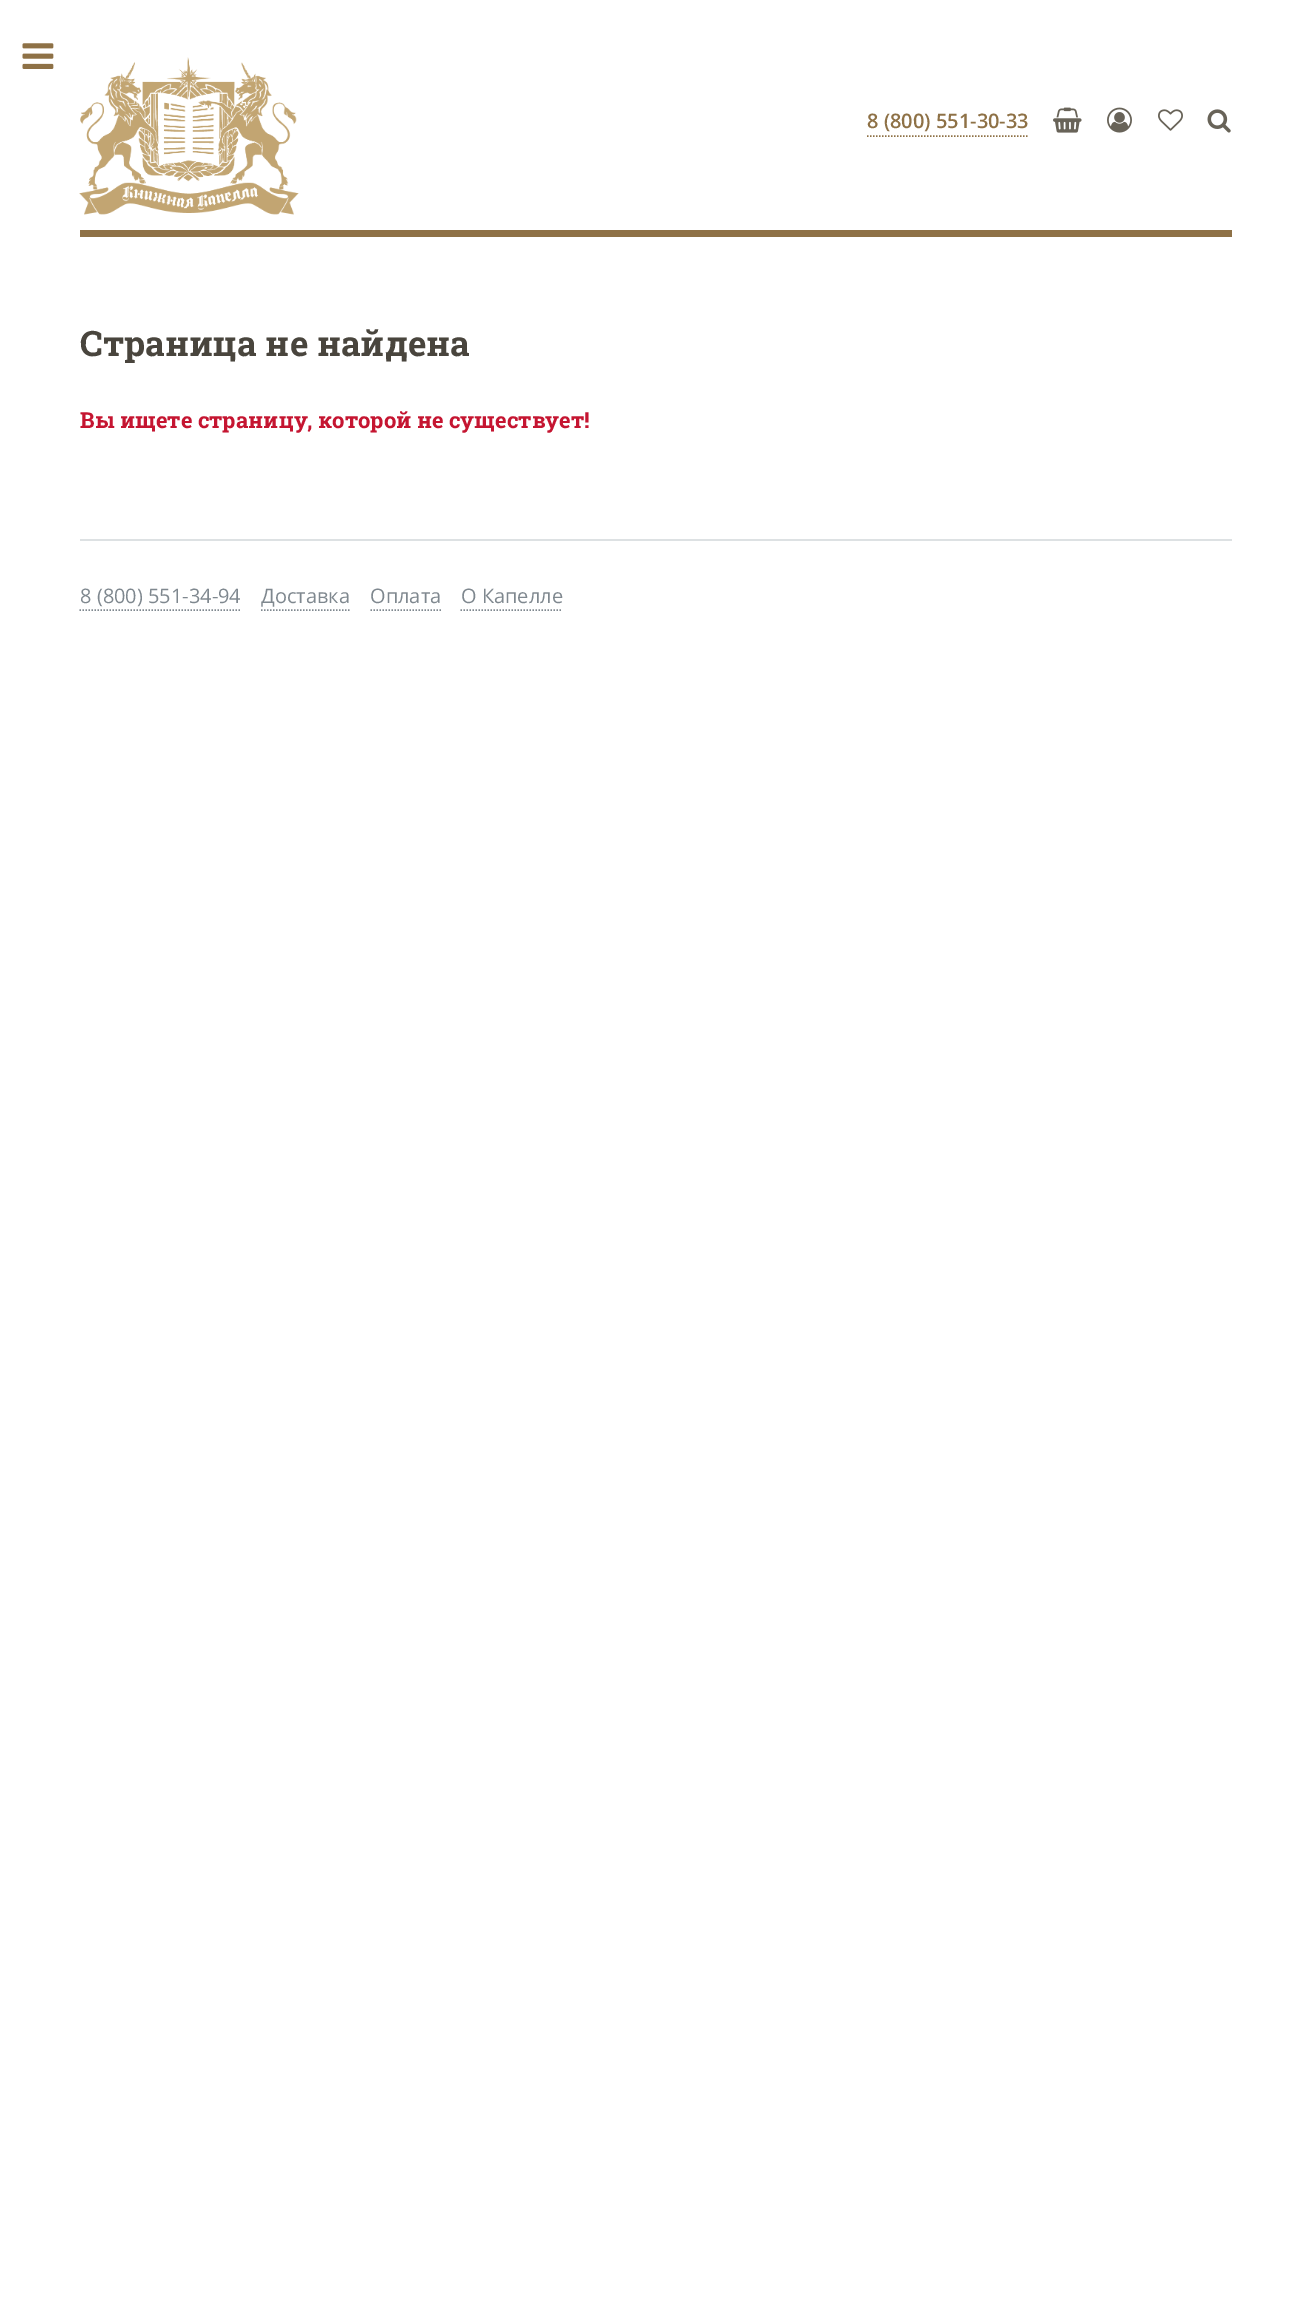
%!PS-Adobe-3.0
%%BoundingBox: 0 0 1310 2315
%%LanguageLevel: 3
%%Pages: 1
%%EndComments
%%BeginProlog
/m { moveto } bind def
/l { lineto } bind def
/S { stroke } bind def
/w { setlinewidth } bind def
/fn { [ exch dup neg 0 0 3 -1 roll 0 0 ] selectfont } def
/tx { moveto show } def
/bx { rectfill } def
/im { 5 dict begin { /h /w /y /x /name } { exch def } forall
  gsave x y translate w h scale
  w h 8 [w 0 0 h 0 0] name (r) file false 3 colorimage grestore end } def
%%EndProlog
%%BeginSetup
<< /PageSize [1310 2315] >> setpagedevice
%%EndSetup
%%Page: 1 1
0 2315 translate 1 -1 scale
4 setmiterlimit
1 setgray
0 0 1310 2315 bx
(image0.raw) 22 43 32 26 im
0.557 0.443 0.275 setrgbcolor
80 230 1152 7 bx
(image1.raw) 79 57 220 158 im
/OpenSans-SemiBold 20 fn
(8 \(800\) 551-30-33) 867 128 tx
1.5 w
[1.5 1.5] 0 setdash
867 136 m 1029 136 l S
(image2.raw) 1053 107 29 26 im
(image3.raw) 1107 107 25 26 im
(image4.raw) 1158 109 25 22 im
(image5.raw) 1207 109 24 24 im
/RobotoSlab-Bold 35 fn
0.286 0.271 0.239 setrgbcolor
(Страница не найдена) 80 356 tx
/RobotoSlab-Bold 22 fn
0.773 0.082 0.192 setrgbcolor
(Вы ищете страницу, которой не существует!) 80 428 tx
0.867 0.882 0.89 setrgbcolor
80 539 1152 2 bx
/OpenSans-Regular 20 fn
0.498 0.533 0.561 setrgbcolor
(8 \(800\) 551-34-94) 80 603 tx
79.5 610 m 241.5 610 l S
(Доставка) 261 603 tx
261 610 m 349.5 610 l S
(Оплата) 370 603 tx
370.5 610 m 441 610 l S
(О Капелле) 461 603 tx
460.5 610 m 562.5 610 l S
showpage
%%EOF
